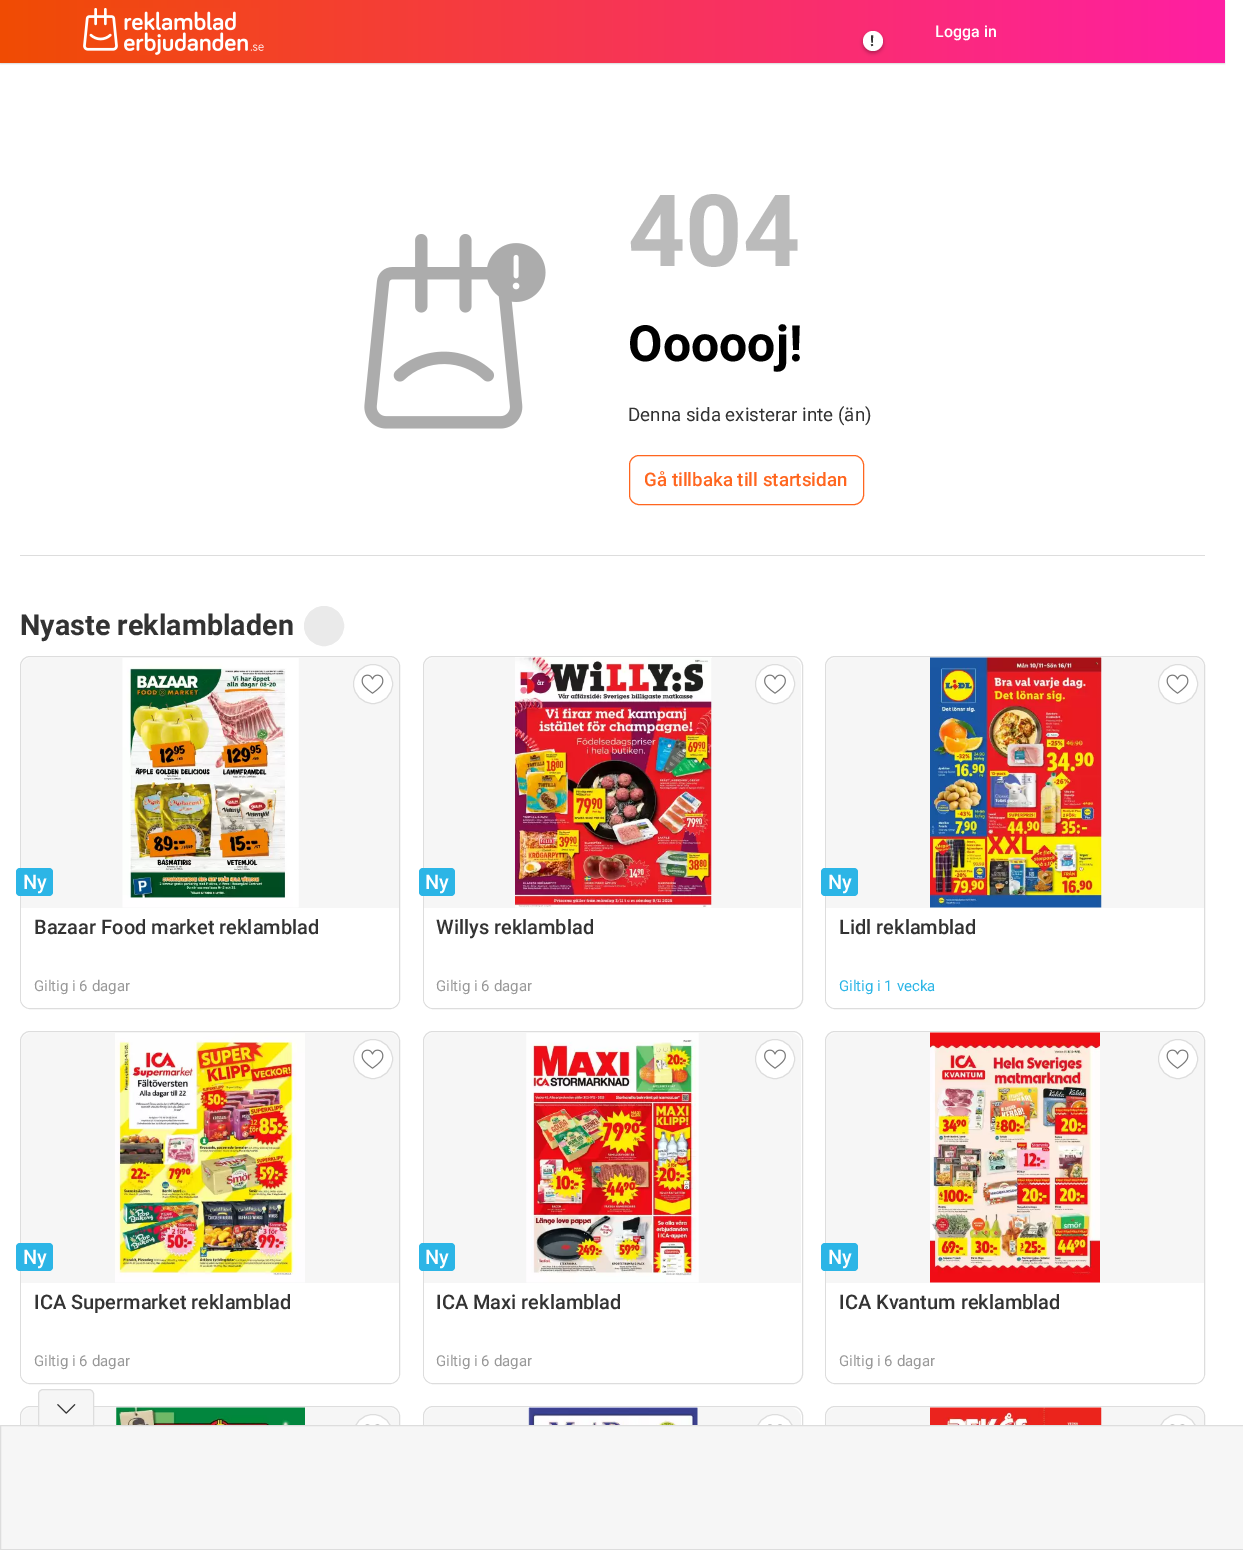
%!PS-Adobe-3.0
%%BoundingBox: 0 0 1243 1550
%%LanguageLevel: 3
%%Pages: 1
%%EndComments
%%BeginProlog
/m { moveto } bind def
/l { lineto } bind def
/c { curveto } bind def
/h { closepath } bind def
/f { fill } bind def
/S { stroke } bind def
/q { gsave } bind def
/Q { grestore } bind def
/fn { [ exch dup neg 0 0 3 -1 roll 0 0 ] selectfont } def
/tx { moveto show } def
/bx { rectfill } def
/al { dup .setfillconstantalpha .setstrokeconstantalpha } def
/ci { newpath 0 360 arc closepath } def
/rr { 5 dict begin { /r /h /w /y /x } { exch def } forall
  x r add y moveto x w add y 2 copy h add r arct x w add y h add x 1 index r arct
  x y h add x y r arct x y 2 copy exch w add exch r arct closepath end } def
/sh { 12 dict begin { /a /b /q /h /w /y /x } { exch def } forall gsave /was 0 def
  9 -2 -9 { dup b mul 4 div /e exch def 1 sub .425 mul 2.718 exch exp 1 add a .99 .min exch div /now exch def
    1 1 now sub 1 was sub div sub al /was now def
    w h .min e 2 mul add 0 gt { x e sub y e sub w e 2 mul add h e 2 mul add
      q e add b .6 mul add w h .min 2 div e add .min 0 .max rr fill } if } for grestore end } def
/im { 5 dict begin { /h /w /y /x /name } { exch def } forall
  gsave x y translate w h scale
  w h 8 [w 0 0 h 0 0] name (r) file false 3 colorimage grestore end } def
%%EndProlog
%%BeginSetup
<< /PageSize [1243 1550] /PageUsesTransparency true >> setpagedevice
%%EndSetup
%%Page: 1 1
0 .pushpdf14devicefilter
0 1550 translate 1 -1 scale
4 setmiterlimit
1 setgray
0 0 1243 1550 bx
0.867 setgray
0 1 1225 63 0 0.5 1 sh
q 0 0 m 1225 0 l 1225 63 l 0 63 l h clip newpath
<< /ShadingType 2 /ColorSpace /DeviceRGB /Coords [1225 31 0 31] /Extend [true true] /Function << /FunctionType 2 /Domain [0 1] /C0 [1 0.122 0.639] /C1 [0.941 0.298 0.012] /N 1 >> >> shfill Q
(image0.raw) 83 8 181 47 im
0 setgray
863 33 20 20 10 2 0.3 sh
1 setgray
873 41 10 ci f
/Roboto-Bold 15 fn
0.2 setgray
(!) 870 46 tx
/Roboto-Medium 16 fn
1 setgray
(Logga in) 935 37 tx
0.867 setgray
20 555 1185 1 bx
(image1.raw) 364 234 182 195 im
/Roboto-Bold 100 fn
0.733 setgray
(404) 628 266 tx
/Roboto-Bold 50 fn
0 setgray
(Oooooj!) 628 361 tx
/Roboto-Regular 18.75 fn
0.2 setgray
(Denna sida existerar inte \(än\)) 628 421 tx
1 0.4 0.122 setrgbcolor
629.5 455.5 234 49 9.5 rr S
/Roboto-Medium 18.75 fn
(Gå tillbaka till startsidan) 644 486 tx
/Roboto-Bold 28.75 fn
0.2 setgray
(Nyaste reklambladen) 20 635 tx
0.918 setgray
324 626 19.5 ci q f Q
S
0.867 setgray
20.5 656.5 379 352 9.5 rr S
0.965 setgray
31 658 m 389 658 l 394.5 658 399 662.5 399 668 c 399 908 l 21 908 l 21 668 l 21 662.5 25.5 658 31 658 c h f
1 setgray
373 684 19.5 ci q f Q
0.867 setgray
S
(image2.raw) 361 674 23 20 im
(image3.raw) 122 658 177 250 im
0.173 0.71 0.902 setrgbcolor
16 868 37 28 4 rr f
/Roboto-Medium 20 fn
1 setgray
(Ny) 23 889 tx
21 908 m 399 908 l 399 998 l 399 1003.5 394.5 1008 389 1008 c 31 1008 l 25.5 1008 21 1003.5 21 998 c h f
0.2 setgray
(Bazaar Food market reklamblad) 34 934 tx
/Roboto-Regular 15 fn
0.6 setgray
(Giltig i 6 dagar) 34 991 tx
0.867 setgray
423.5 656.5 379 352 9.5 rr S
0.965 setgray
434 658 m 791 658 l 796.5 658 801 662.5 801 668 c 801 908 l 424 908 l 424 668 l 424 662.5 428.5 658 434 658 c h f
1 setgray
775 684 19.5 ci q f Q
0.867 setgray
S
(image4.raw) 764 674 22 20 im
(image5.raw) 515 657 197 251 im
0.173 0.71 0.902 setrgbcolor
419 868 36 28 4 rr f
/Roboto-Medium 20 fn
1 setgray
(Ny) 425 889 tx
424 908 m 801 908 l 801 998 l 801 1003.5 796.5 1008 791 1008 c 434 1008 l 428.5 1008 424 1003.5 424 998 c h f
0.2 setgray
(Willys reklamblad) 436 934 tx
/Roboto-Regular 15 fn
0.6 setgray
(Giltig i 6 dagar) 436 991 tx
0.867 setgray
825.5 656.5 379 352 9.5 rr S
0.965 setgray
836 658 m 1194 658 l 1199.5 658 1204 662.5 1204 668 c 1204 908 l 826 908 l 826 668 l 826 662.5 830.5 658 836 658 c h f
1 setgray
1178 684 19.5 ci q f Q
0.867 setgray
S
(image2.raw) 1166 674 23 20 im
(image6.raw) 930 657 172 251 im
0.173 0.71 0.902 setrgbcolor
821 868 37 28 4 rr f
/Roboto-Medium 20 fn
1 setgray
(Ny) 828 889 tx
826 908 m 1204 908 l 1204 998 l 1204 1003.5 1199.5 1008 1194 1008 c 836 1008 l 830.5 1008 826 1003.5 826 998 c h f
0.2 setgray
(Lidl reklamblad) 839 934 tx
/Roboto-Regular 15 fn
0.173 0.71 0.902 setrgbcolor
(Giltig i 1 vecka) 839 991 tx
0.867 setgray
20.5 1031.5 379 352 9.5 rr S
0.965 setgray
31 1033 m 389 1033 l 394.5 1033 399 1037.5 399 1043 c 399 1283 l 21 1283 l 21 1043 l 21 1037.5 25.5 1033 31 1033 c h f
1 setgray
373 1059 19.5 ci q f Q
0.867 setgray
S
(image2.raw) 361 1049 23 20 im
(image7.raw) 115 1033 190 250 im
0.173 0.71 0.902 setrgbcolor
16 1243 37 28 4 rr f
/Roboto-Medium 20 fn
1 setgray
(Ny) 23 1264 tx
21 1283 m 399 1283 l 399 1373 l 399 1378.5 394.5 1383 389 1383 c 31 1383 l 25.5 1383 21 1378.5 21 1373 c h f
0.2 setgray
(ICA Supermarket reklamblad) 34 1309 tx
/Roboto-Regular 15 fn
0.6 setgray
(Giltig i 6 dagar) 34 1366 tx
0.867 setgray
423.5 1031.5 379 352 9.5 rr S
0.965 setgray
434 1033 m 791 1033 l 796.5 1033 801 1037.5 801 1043 c 801 1283 l 424 1283 l 424 1043 l 424 1037.5 428.5 1033 434 1033 c h f
1 setgray
775 1059 19.5 ci q f Q
0.867 setgray
S
(image4.raw) 764 1049 22 20 im
(image8.raw) 526 1033 173 250 im
0.173 0.71 0.902 setrgbcolor
419 1243 36 28 4 rr f
/Roboto-Medium 20 fn
1 setgray
(Ny) 425 1264 tx
424 1283 m 801 1283 l 801 1373 l 801 1378.5 796.5 1383 791 1383 c 434 1383 l 428.5 1383 424 1378.5 424 1373 c h f
0.2 setgray
(ICA Maxi reklamblad) 436 1309 tx
/Roboto-Regular 15 fn
0.6 setgray
(Giltig i 6 dagar) 436 1366 tx
0.867 setgray
825.5 1031.5 379 352 9.5 rr S
0.965 setgray
836 1033 m 1194 1033 l 1199.5 1033 1204 1037.5 1204 1043 c 1204 1283 l 826 1283 l 826 1043 l 826 1037.5 830.5 1033 836 1033 c h f
1 setgray
1178 1059 19.5 ci q f Q
0.867 setgray
S
(image2.raw) 1166 1049 23 20 im
(image9.raw) 930 1032 170 251 im
0.173 0.71 0.902 setrgbcolor
821 1243 37 28 4 rr f
/Roboto-Medium 20 fn
1 setgray
(Ny) 828 1264 tx
826 1283 m 1204 1283 l 1204 1373 l 1204 1378.5 1199.5 1383 1194 1383 c 836 1383 l 830.5 1383 826 1378.5 826 1373 c h f
0.2 setgray
(ICA Kvantum reklamblad) 839 1309 tx
/Roboto-Regular 15 fn
0.6 setgray
(Giltig i 6 dagar) 839 1366 tx
0.867 setgray
20.5 1406.5 379 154 9.5 rr S
0.965 setgray
31 1408 m 389 1408 l 394.5 1408 399 1412.5 399 1418 c 399 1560 l 21 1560 l 21 1418 l 21 1412.5 25.5 1408 31 1408 c h f
(image10.raw) 116 1407 189 18 im
1 setgray
373 1434 19.5 ci q f Q
0.867 setgray
S
(image11.raw) 365 1424 15 1 im
423.5 1406.5 379 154 9.5 rr S
0.965 setgray
434 1408 m 791 1408 l 796.5 1408 801 1412.5 801 1418 c 801 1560 l 424 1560 l 424 1418 l 424 1412.5 428.5 1408 434 1408 c h f
(image12.raw) 528 1407 170 18 im
1 setgray
775 1434 19.5 ci q f Q
0.867 setgray
S
(image13.raw) 768 1424 14 1 im
825.5 1406.5 379 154 9.5 rr S
0.965 setgray
836 1408 m 1194 1408 l 1199.5 1408 1204 1412.5 1204 1418 c 1204 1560 l 826 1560 l 826 1418 l 826 1412.5 830.5 1408 836 1408 c h f
(image14.raw) 930 1407 172 18 im
1 setgray
1178 1434 19.5 ci q f Q
0.867 setgray
S
(image11.raw) 1170 1424 15 1 im
0.965 setgray
0.5 1425.5 m 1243.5 1425.5 l 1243.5 1549.5 l 0.5 1549.5 l h q f Q
0.867 setgray
S
0.965 setgray
43 1389.5 m 89 1389.5 l 91.5 1389.5 93.5 1391.5 93.5 1394 c 93.5 1425.5 l 38.5 1425.5 l 38.5 1394 l 38.5 1391.5 40.5 1389.5 43 1389.5 c h q f Q
0.867 setgray
S
(image15.raw) 57 1404 19 10 im
.poppdf14devicefilter showpage
%%EOF
